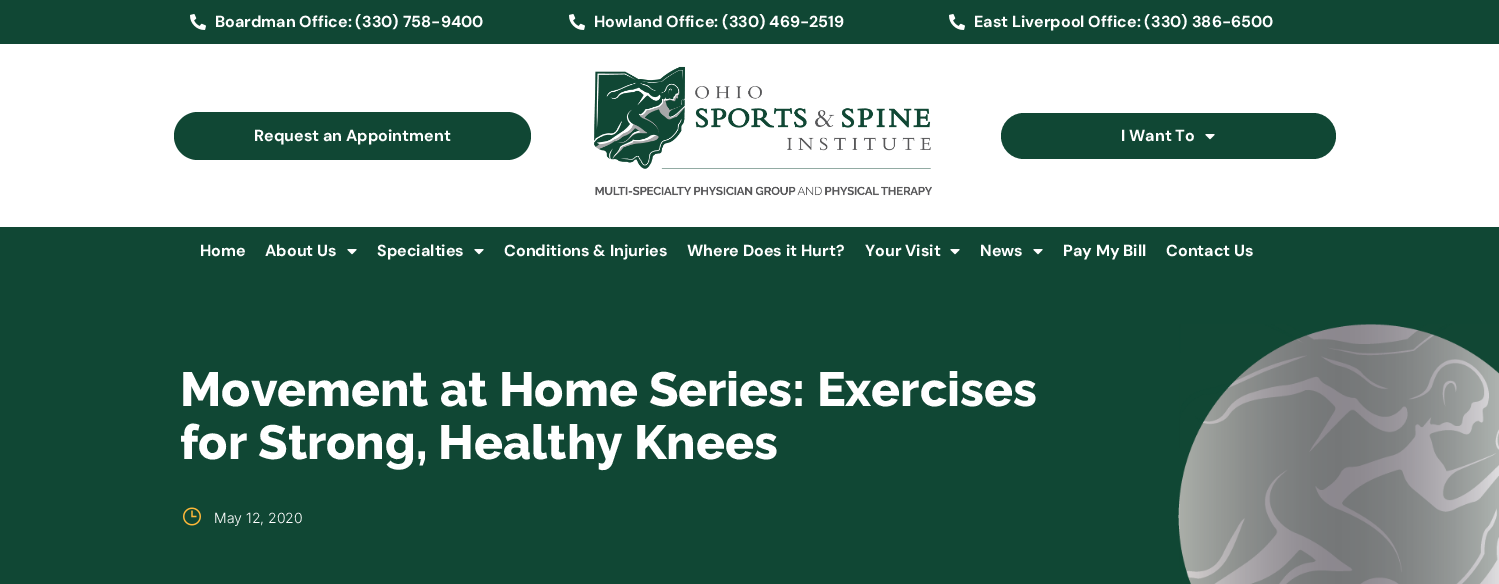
%!PS-Adobe-3.0
%%BoundingBox: 0 0 1499 584
%%LanguageLevel: 3
%%Pages: 1
%%EndComments
%%BeginProlog
/f { fill } bind def
/fn { [ exch dup neg 0 0 3 -1 roll 0 0 ] selectfont } def
/tx { moveto show } def
/bx { rectfill } def
/rr { 5 dict begin { /r /h /w /y /x } { exch def } forall
  x r add y moveto x w add y 2 copy h add r arct x w add y h add x 1 index r arct
  x y h add x y r arct x y 2 copy exch w add exch r arct closepath end } def
/im { 5 dict begin { /h /w /y /x /name } { exch def } forall
  gsave x y translate w h scale
  w h 8 [w 0 0 h 0 0] name (r) file false 3 colorimage grestore end } def
%%EndProlog
%%BeginSetup
<< /PageSize [1499 584] >> setpagedevice
%%EndSetup
%%Page: 1 1
0 584 translate 1 -1 scale
4 setmiterlimit
1 setgray
0 0 1499 584 bx
0.063 0.278 0.204 setrgbcolor
0 0 1499 44 bx
(image0.raw) 190 14 16 16 im
/DMSans-Bold 16 fn
1 setgray
(Boardman Office: \(330\) 758-9400) 215 27 tx
(image0.raw) 569 14 16 16 im
(Howland Office: \(330\) 469-2519) 594 27 tx
(image0.raw) 949 14 16 16 im
(East Liverpool Office: \(330\) 386-6500) 974 27 tx
0.063 0.278 0.204 setrgbcolor
174 112 357 48 24 rr f
1 setgray
(Request an Appointment) 254 141 tx
(image1.raw) 594 66 338 130 im
0.063 0.278 0.204 setrgbcolor
1001 113 335 46 23 rr f
1 setgray
(I Want To) 1121 141 tx
(image2.raw) 1205 134 10 6 im
0.063 0.278 0.204 setrgbcolor
0 227 1499 357 bx
1 setgray
(Home) 200 256 tx
(About Us) 265 256 tx
(image2.raw) 347 249 10 6 im
(Specialties) 377 256 tx
(image2.raw) 474 249 10 6 im
(Conditions & Injuries) 504 256 tx
(Where Does it Hurt?) 687 256 tx
(Your Visit) 865 256 tx
(image2.raw) 950 249 10 6 im
(News) 980 256 tx
(image2.raw) 1033 249 10 6 im
(Pay My Bill) 1063 256 tx
(Contact Us) 1166 256 tx
/Raleway-ExtraBold 48 fn
(Movement at Home Series: Exercises) 180 406 tx
(for Strong, Healthy Knees) 180 459 tx
(image3.raw) 183 507 18 19 im
/Inter-Light 14 fn
(May 12, 2020) 214 523 tx
(image4.raw) 1178 324 321 260 im
showpage
%%EOF
